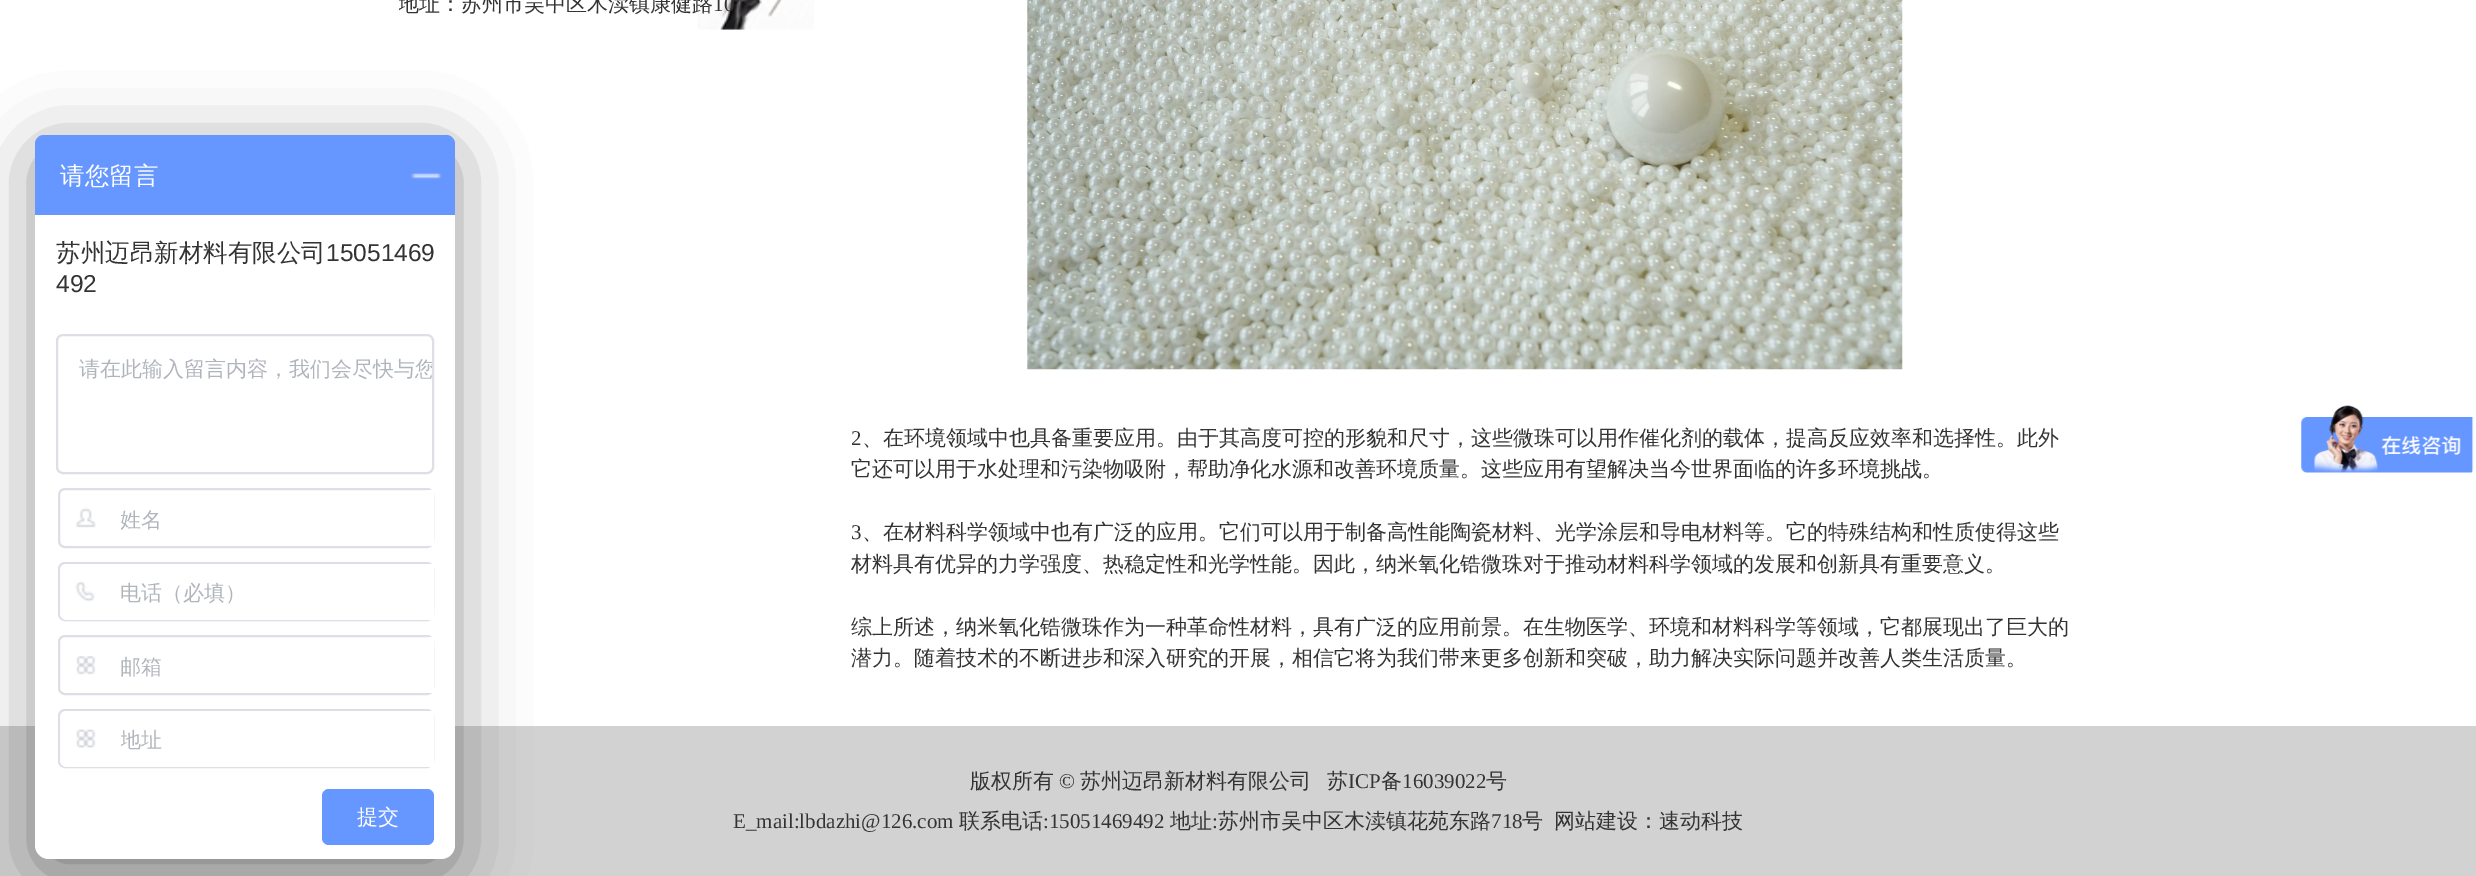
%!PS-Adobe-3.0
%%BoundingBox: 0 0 2476 876
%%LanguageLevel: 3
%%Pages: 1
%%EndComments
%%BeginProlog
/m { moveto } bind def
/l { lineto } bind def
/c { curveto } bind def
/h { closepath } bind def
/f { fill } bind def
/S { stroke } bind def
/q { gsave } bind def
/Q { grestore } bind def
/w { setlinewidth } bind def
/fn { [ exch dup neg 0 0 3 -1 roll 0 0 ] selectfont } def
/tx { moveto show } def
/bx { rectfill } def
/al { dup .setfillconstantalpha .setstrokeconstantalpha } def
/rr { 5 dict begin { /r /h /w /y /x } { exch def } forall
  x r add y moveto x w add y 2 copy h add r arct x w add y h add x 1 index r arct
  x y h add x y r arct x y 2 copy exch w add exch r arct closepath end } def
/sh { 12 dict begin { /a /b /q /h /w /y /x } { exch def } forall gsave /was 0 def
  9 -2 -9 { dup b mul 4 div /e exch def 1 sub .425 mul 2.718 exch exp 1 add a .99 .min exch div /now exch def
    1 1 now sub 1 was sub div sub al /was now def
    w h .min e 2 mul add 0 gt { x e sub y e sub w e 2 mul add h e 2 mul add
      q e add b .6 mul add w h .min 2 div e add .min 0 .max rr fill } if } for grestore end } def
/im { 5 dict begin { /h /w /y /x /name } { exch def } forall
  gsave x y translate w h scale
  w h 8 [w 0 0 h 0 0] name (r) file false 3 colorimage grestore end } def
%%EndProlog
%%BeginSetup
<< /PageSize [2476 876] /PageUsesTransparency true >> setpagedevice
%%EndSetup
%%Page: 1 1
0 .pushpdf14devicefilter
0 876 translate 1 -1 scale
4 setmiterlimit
1 setgray
0 0 2476 876 bx
0.824 setgray
0 726 2476 150 bx
0 setgray
35 149 420 724 14 35 0.4 sh
1 setgray
35 135 420 724 14 rr f
0.4 0.588 1 setrgbcolor
44 135 m 446 135 l 451 135 455 139 455 144 c 455 215 l 35 215 l 35 144 l 35 139 39 135 44 135 c h f
/WenQuanYiZenHei-Medium 24.5 fn
1 setgray
(请您留言) 60 184 tx
(image0.raw) 410 173 32 7 im
0.2 setgray
(苏州迈昂新材料有限公司) 56 261 tx
/LiberationSans-Regular 24.5 fn
(15051469) 326 261 tx
(492) 56 292 tx
0.863 0.875 0.902 setrgbcolor
2 w
57 335 376 138 6 rr S
q
58 336 374 137 5 rr clip newpath
/WenQuanYiZenHei-Medium 21 fn
0.69 0.706 0.733 setrgbcolor
(请在此输入留言内容，我们会尽快与您) 79 376 tx
Q
59 489 374 58 6 rr S
(image1.raw) 75 507 21 21 im
1 setgray
428 490 6 56 bx
q
121 506 317 30 rectclip
/WenQuanYiZenHei-Medium 21 fn
0.69 0.706 0.733 setrgbcolor
(姓名) 120 527 tx
Q
0.863 0.875 0.902 setrgbcolor
59 563 374 57 6 rr S
1 setgray
67 564 m 121 564 l 121 620 l 67 620 l 63 620 60 617 60 613 c 60 571 l 60 567 63 564 67 564 c h f
(image2.raw) 75 581 20 21 im
121 564 313 56 bx
/WenQuanYiZenHei-Medium 21 fn
0.69 0.706 0.733 setrgbcolor
(电话（必填）) 120 600 tx
0.863 0.875 0.902 setrgbcolor
59 636 374 58 6 rr S
(image3.raw) 76 656 20 19 im
1 setgray
428 637 6 56 bx
0.69 0.706 0.733 setrgbcolor
(邮箱) 120 674 tx
0.863 0.875 0.902 setrgbcolor
59 710 374 57 6 rr S
1 setgray
67 711 m 121 711 l 121 767 l 67 767 l 63 767 60 764 60 760 c 60 718 l 60 714 63 711 67 711 c h f
(image4.raw) 76 729 20 19 im
121 711 313 56 bx
q
121 726 317 30 rectclip
0.69 0.706 0.733 setrgbcolor
(地址) 120 747 tx
Q
0.4 0.588 1 setrgbcolor
322 789 112 56 7 rr f
1 setgray
(提交) 357 824 tx
(image5.raw) 2301 405 173 68 im
(image6.raw) 697 0 117 30 im
q
399 0 418 30 rectclip
0.2 setgray
(地址：苏州市吴中区木渎镇康健路) 398 11 tx
Q
/LiberationSerif-Regular 21 fn
0.2 setgray
(10) 713 11 tx
(image7.raw) 1027 0 876 370 im
(2) 851 445 tx
/WenQuanYiZenHei-Medium 21 fn
(、在环境领域中也具备重要应用。由于其高度可控的形貌和尺寸，这些微珠可以用作催化剂的载体，提高反应效率和选择性。此外) 862 445 tx
(它还可以用于水处理和污染物吸附，帮助净化水源和改善环境质量。这些应用有望解决当今世界面临的许多环境挑战。) 851 476 tx
/LiberationSerif-Regular 21 fn
(3) 851 539 tx
/WenQuanYiZenHei-Medium 21 fn
(、在材料科学领域中也有广泛的应用。它们可以用于制备高性能陶瓷材料、光学涂层和导电材料等。它的特殊结构和性质使得这些) 862 539 tx
(材料具有优异的力学强度、热稳定性和光学性能。因此，纳米氧化锆微珠对于推动材料科学领域的发展和创新具有重要意义。) 851 571 tx
(综上所述，纳米氧化锆微珠作为一种革命性材料，具有广泛的应用前景。在生物医学、环境和材料科学等领域，它都展现出了巨大的) 851 634 tx
(潜力。随着技术的不断进步和深入研究的开展，相信它将为我们带来更多创新和突破，助力解决实际问题并改善人类生活质量。) 851 665 tx
(版权所有) 970 788 tx
/LiberationSerif-Regular 21 fn
(©) 1059 788 tx
/WenQuanYiZenHei-Medium 21 fn
(苏州迈昂新材料有限公司) 1080 788 tx
(苏) 1327 788 tx
/LiberationSerif-Regular 21 fn
(ICP) 1348 788 tx
/WenQuanYiZenHei-Medium 21 fn
(备) 1381 788 tx
/LiberationSerif-Regular 21 fn
(16039022) 1402 788 tx
/WenQuanYiZenHei-Medium 21 fn
(号) 1486 788 tx
/LiberationSerif-Regular 21 fn
(E_mail:lbdazhi@126.com) 733 828 tx
/WenQuanYiZenHei-Medium 21 fn
(联系电话) 959 828 tx
/LiberationSerif-Regular 21 fn
(:15051469492) 1043 828 tx
/WenQuanYiZenHei-Medium 21 fn
(地址) 1170 828 tx
/LiberationSerif-Regular 21 fn
(:) 1212 828 tx
/WenQuanYiZenHei-Medium 21 fn
(苏州市吴中区木渎镇花苑东路) 1218 828 tx
/LiberationSerif-Regular 21 fn
(718) 1491 828 tx
/WenQuanYiZenHei-Medium 21 fn
(号) 1522 828 tx
(网站建设：速动科技) 1554 828 tx
.poppdf14devicefilter showpage
%%EOF
